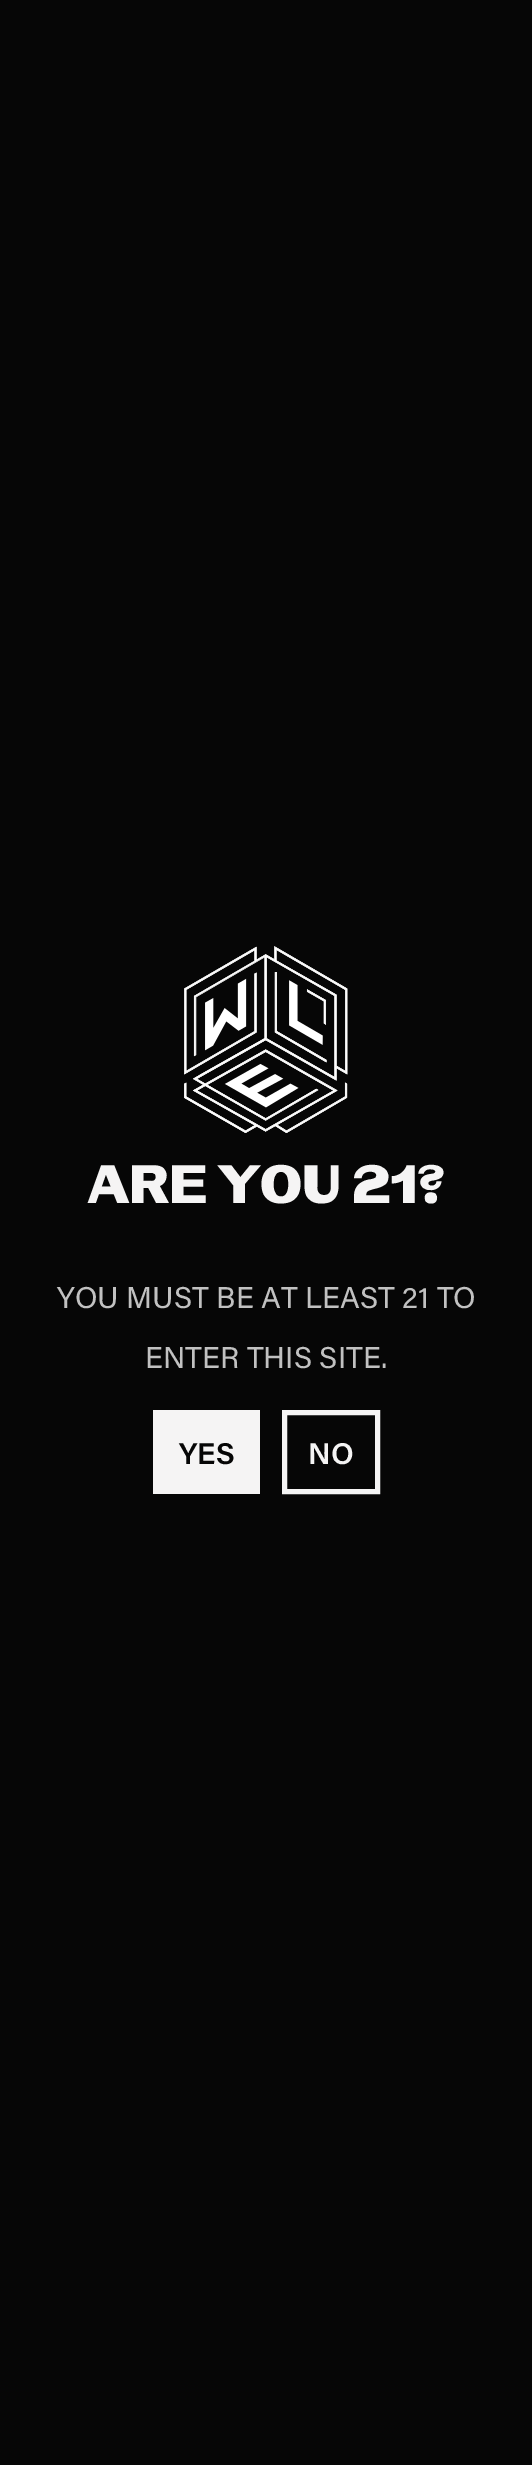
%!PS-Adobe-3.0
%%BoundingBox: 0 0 532 2465
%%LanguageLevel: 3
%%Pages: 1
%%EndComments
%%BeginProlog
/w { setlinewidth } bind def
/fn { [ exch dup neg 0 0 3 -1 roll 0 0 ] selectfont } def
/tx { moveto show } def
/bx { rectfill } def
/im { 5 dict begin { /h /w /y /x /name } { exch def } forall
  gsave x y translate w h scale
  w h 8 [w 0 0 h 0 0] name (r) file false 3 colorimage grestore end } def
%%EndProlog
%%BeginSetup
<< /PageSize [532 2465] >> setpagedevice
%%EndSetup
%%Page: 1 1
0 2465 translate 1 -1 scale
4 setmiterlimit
0.024 setgray
0 0 532 2465 bx
(image0.raw) 184 946 164 187 im
/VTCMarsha-Bold 54 fn
0.961 0.957 0.957 setrgbcolor
(ARE YOU 21?) 88 1203 tx
/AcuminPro-Regular 30 fn
0.757 setgray
(YOU MUST BE AT LEAST 21 TO) 57 1308 tx
(ENTER THIS SITE.) 145 1368 tx
0.961 0.957 0.957 setrgbcolor
153 1410 107 84 bx
/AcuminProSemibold-SemiBold 30 fn
0.024 setgray
(YES) 179 1464 tx
0.961 0.957 0.957 setrgbcolor
5 w
284.5 1412.5 93 79 rectstroke
(NO) 308 1464 tx
showpage
%%EOF
